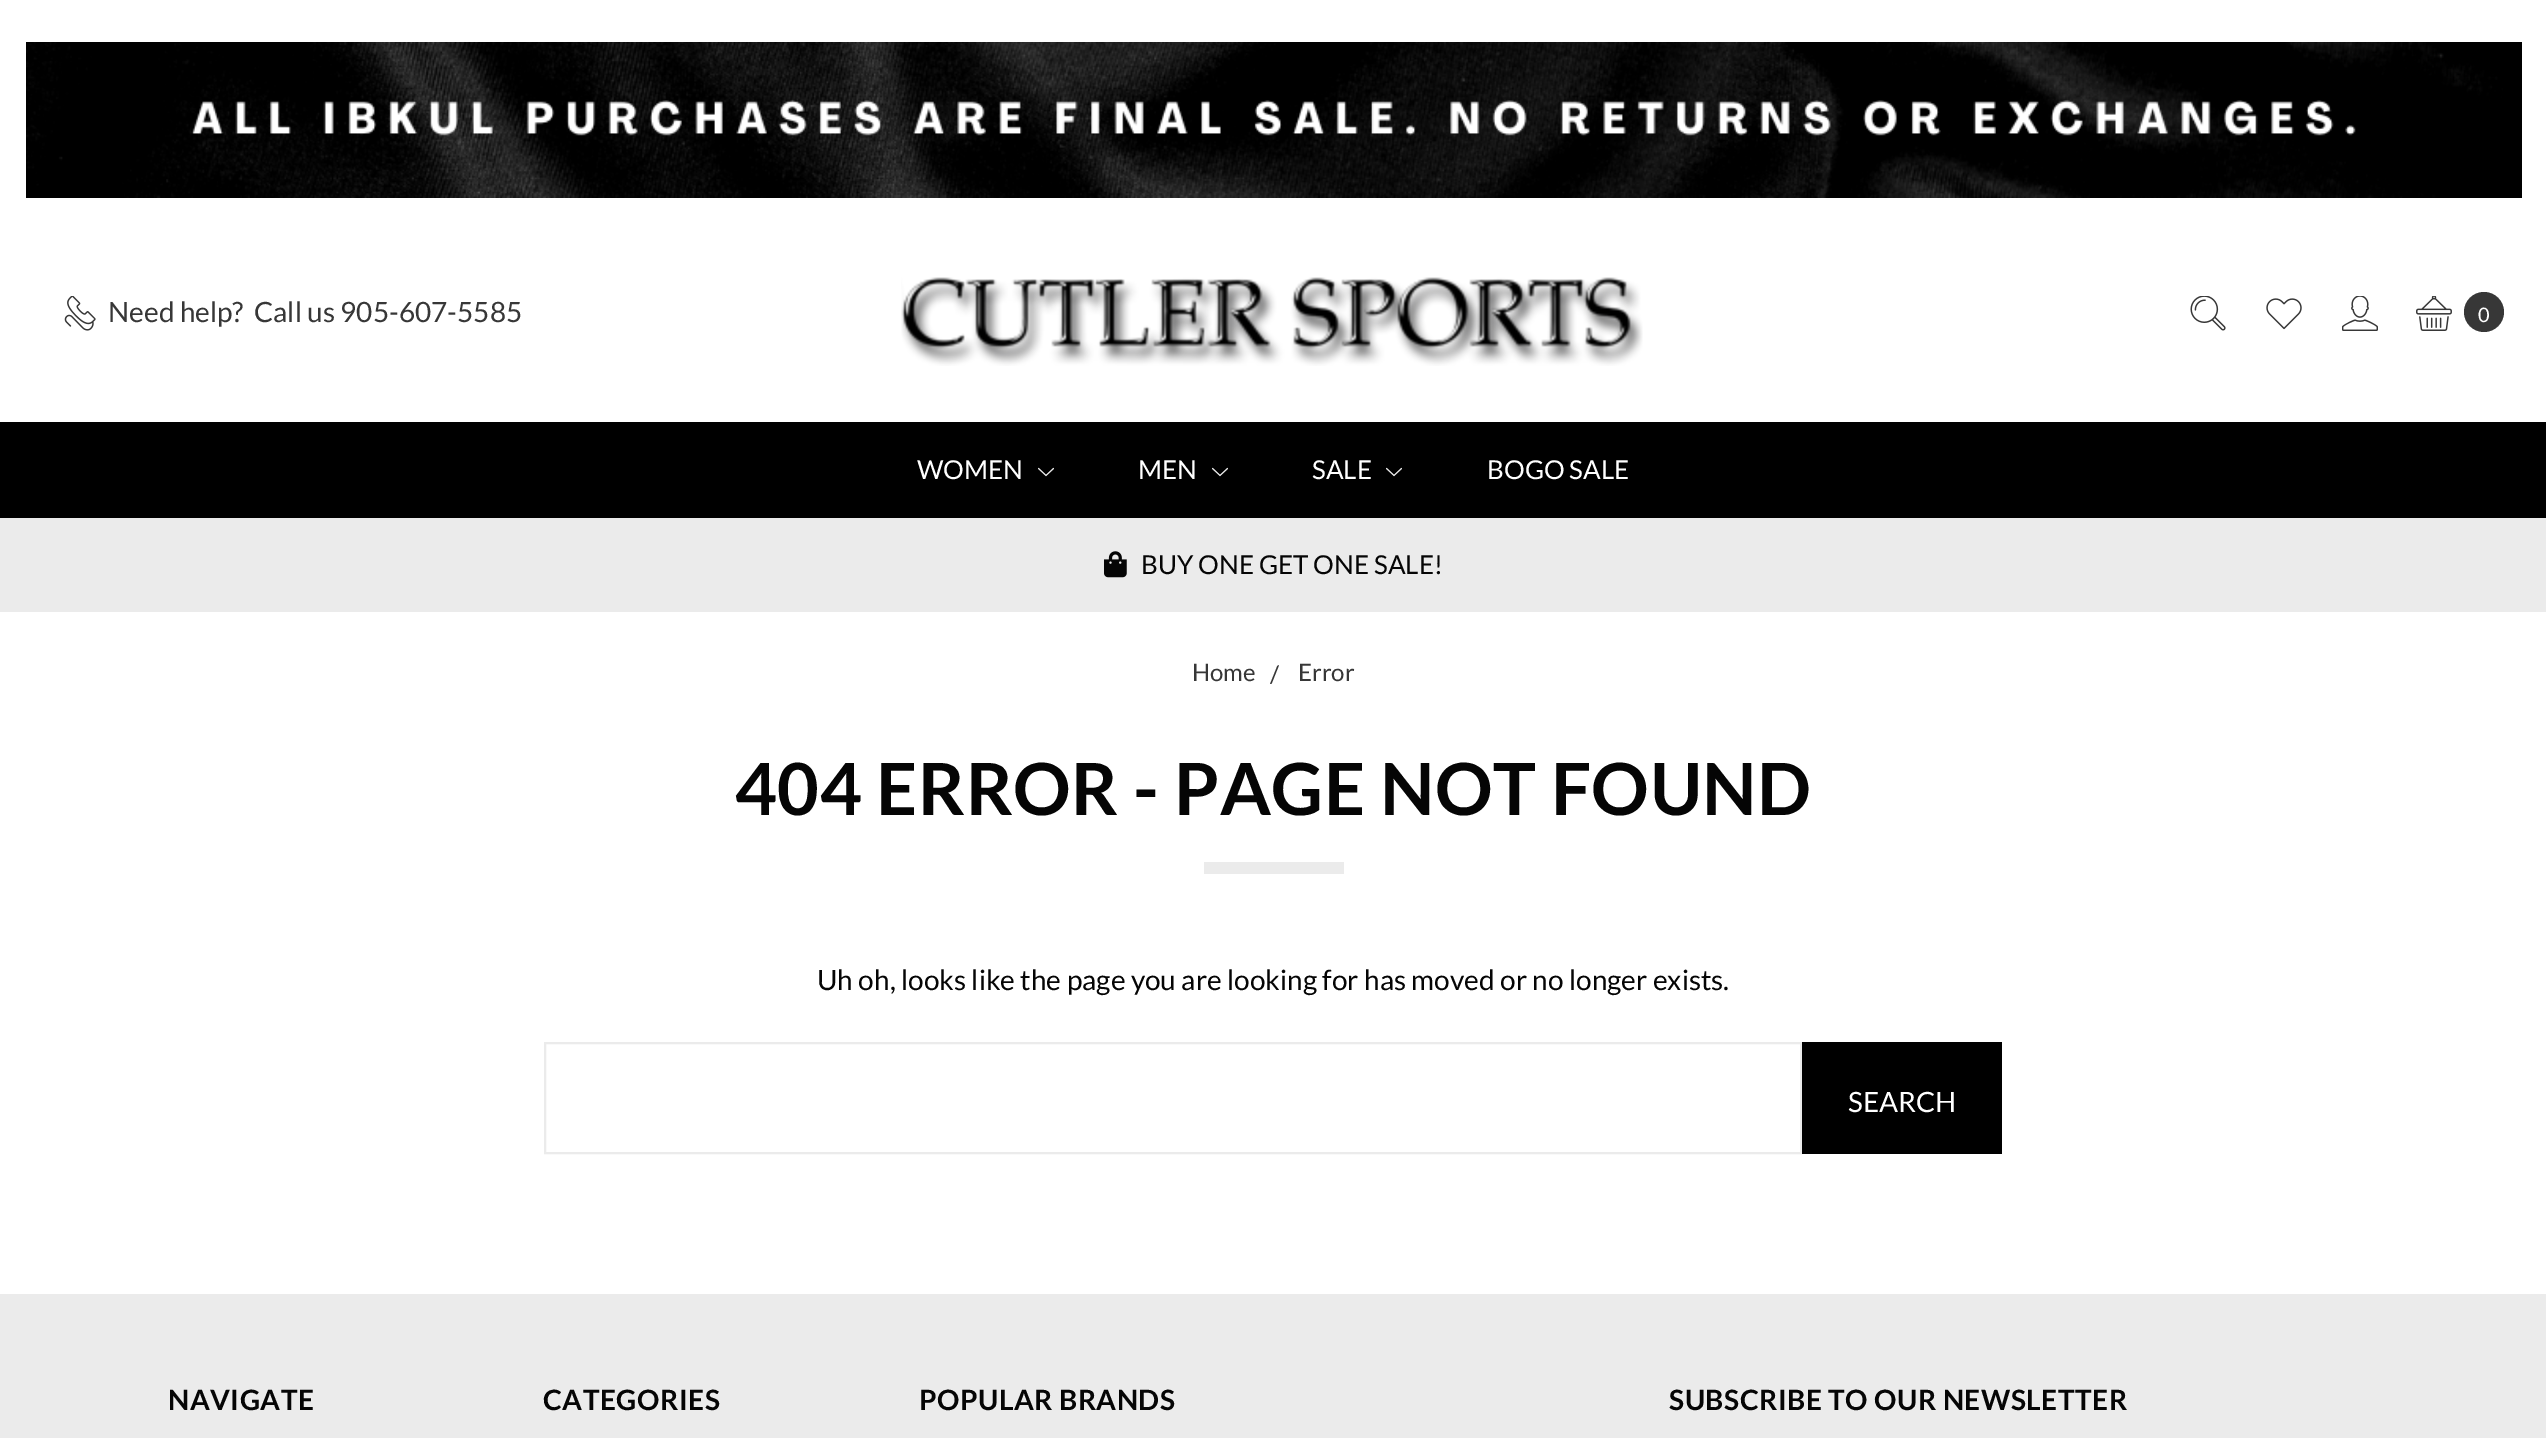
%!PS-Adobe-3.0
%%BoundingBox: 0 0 2546 1438
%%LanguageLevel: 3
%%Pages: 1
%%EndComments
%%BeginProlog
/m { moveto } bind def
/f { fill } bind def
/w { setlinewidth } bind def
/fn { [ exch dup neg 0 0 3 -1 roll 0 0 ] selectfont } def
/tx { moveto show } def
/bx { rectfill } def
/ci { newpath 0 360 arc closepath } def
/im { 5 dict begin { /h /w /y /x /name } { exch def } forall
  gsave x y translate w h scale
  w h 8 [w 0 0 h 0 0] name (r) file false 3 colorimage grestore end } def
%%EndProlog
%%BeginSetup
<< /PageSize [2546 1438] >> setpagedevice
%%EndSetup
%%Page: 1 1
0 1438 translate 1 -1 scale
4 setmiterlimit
1 setgray
0 0 2546 1438 bx
(image0.raw) 26 42 2496 156 im
(image1.raw) 64 296 32 35 im
/Lato-Regular 28 fn
0.216 setgray
(Need help?) 108 322 tx
(Call us 905-607-5585) 254 322 tx
(image2.raw) 901 277 742 89 im
(image3.raw) 2190 296 36 35 im
(image4.raw) 2266 298 36 32 im
(image5.raw) 2342 296 36 35 im
(image6.raw) 2416 296 36 35 im
2484 312 20 ci f
/Lato-Regular 20 fn
1 setgray
(0) 2478 322 tx
0 setgray
0 422 2546 96 bx
/Lato-Regular 26 fn
1 setgray
(WOMEN) 917 479 tx
(image7.raw) 1038 467 16 10 im
(MEN) 1138 479 tx
(image7.raw) 1212 467 16 10 im
(SALE) 1312 479 tx
(image7.raw) 1386 467 16 10 im
(BOGO SALE) 1487 479 tx
0.922 setgray
0 518 2546 94 bx
(image8.raw) 1104 551 23 27 im
0.02 setgray
(BUY ONE GET ONE SALE!) 1141 574 tx
/Lato-Regular 24 fn
0.216 setgray
(Home) 1192 681 tx
(/) 1270 683 tx
(Error) 1298 681 tx
/Lato-Bold 72 fn
0.02 setgray
735 815 m 0.5 0 (404 ERROR - PAGE NOT FOUND) ashow
0.922 setgray
1204 862 140 12 bx
/Lato-Regular 28 fn
0.02 setgray
(Uh oh, looks like the page you are looking for has moved or no longer exists.) 817 990 tx
0.922 setgray
2 w
545 1043 1256 110 rectstroke
0 setgray
1802 1042 200 112 bx
1 setgray
(SEARCH) 1848 1112 tx
0.922 setgray
0 1294 2546 144 bx
/Lato-Bold 28 fn
0.02 setgray
168 1410 m 0.5 0 (NAVIGATE) ashow
543 1410 m 0.5 0 (CATEGORIES) ashow
919 1410 m 0.5 0 (POPULAR BRANDS) ashow
1669 1410 m 0.5 0 (SUBSCRIBE TO OUR NEWSLETTER) ashow
showpage
%%EOF
